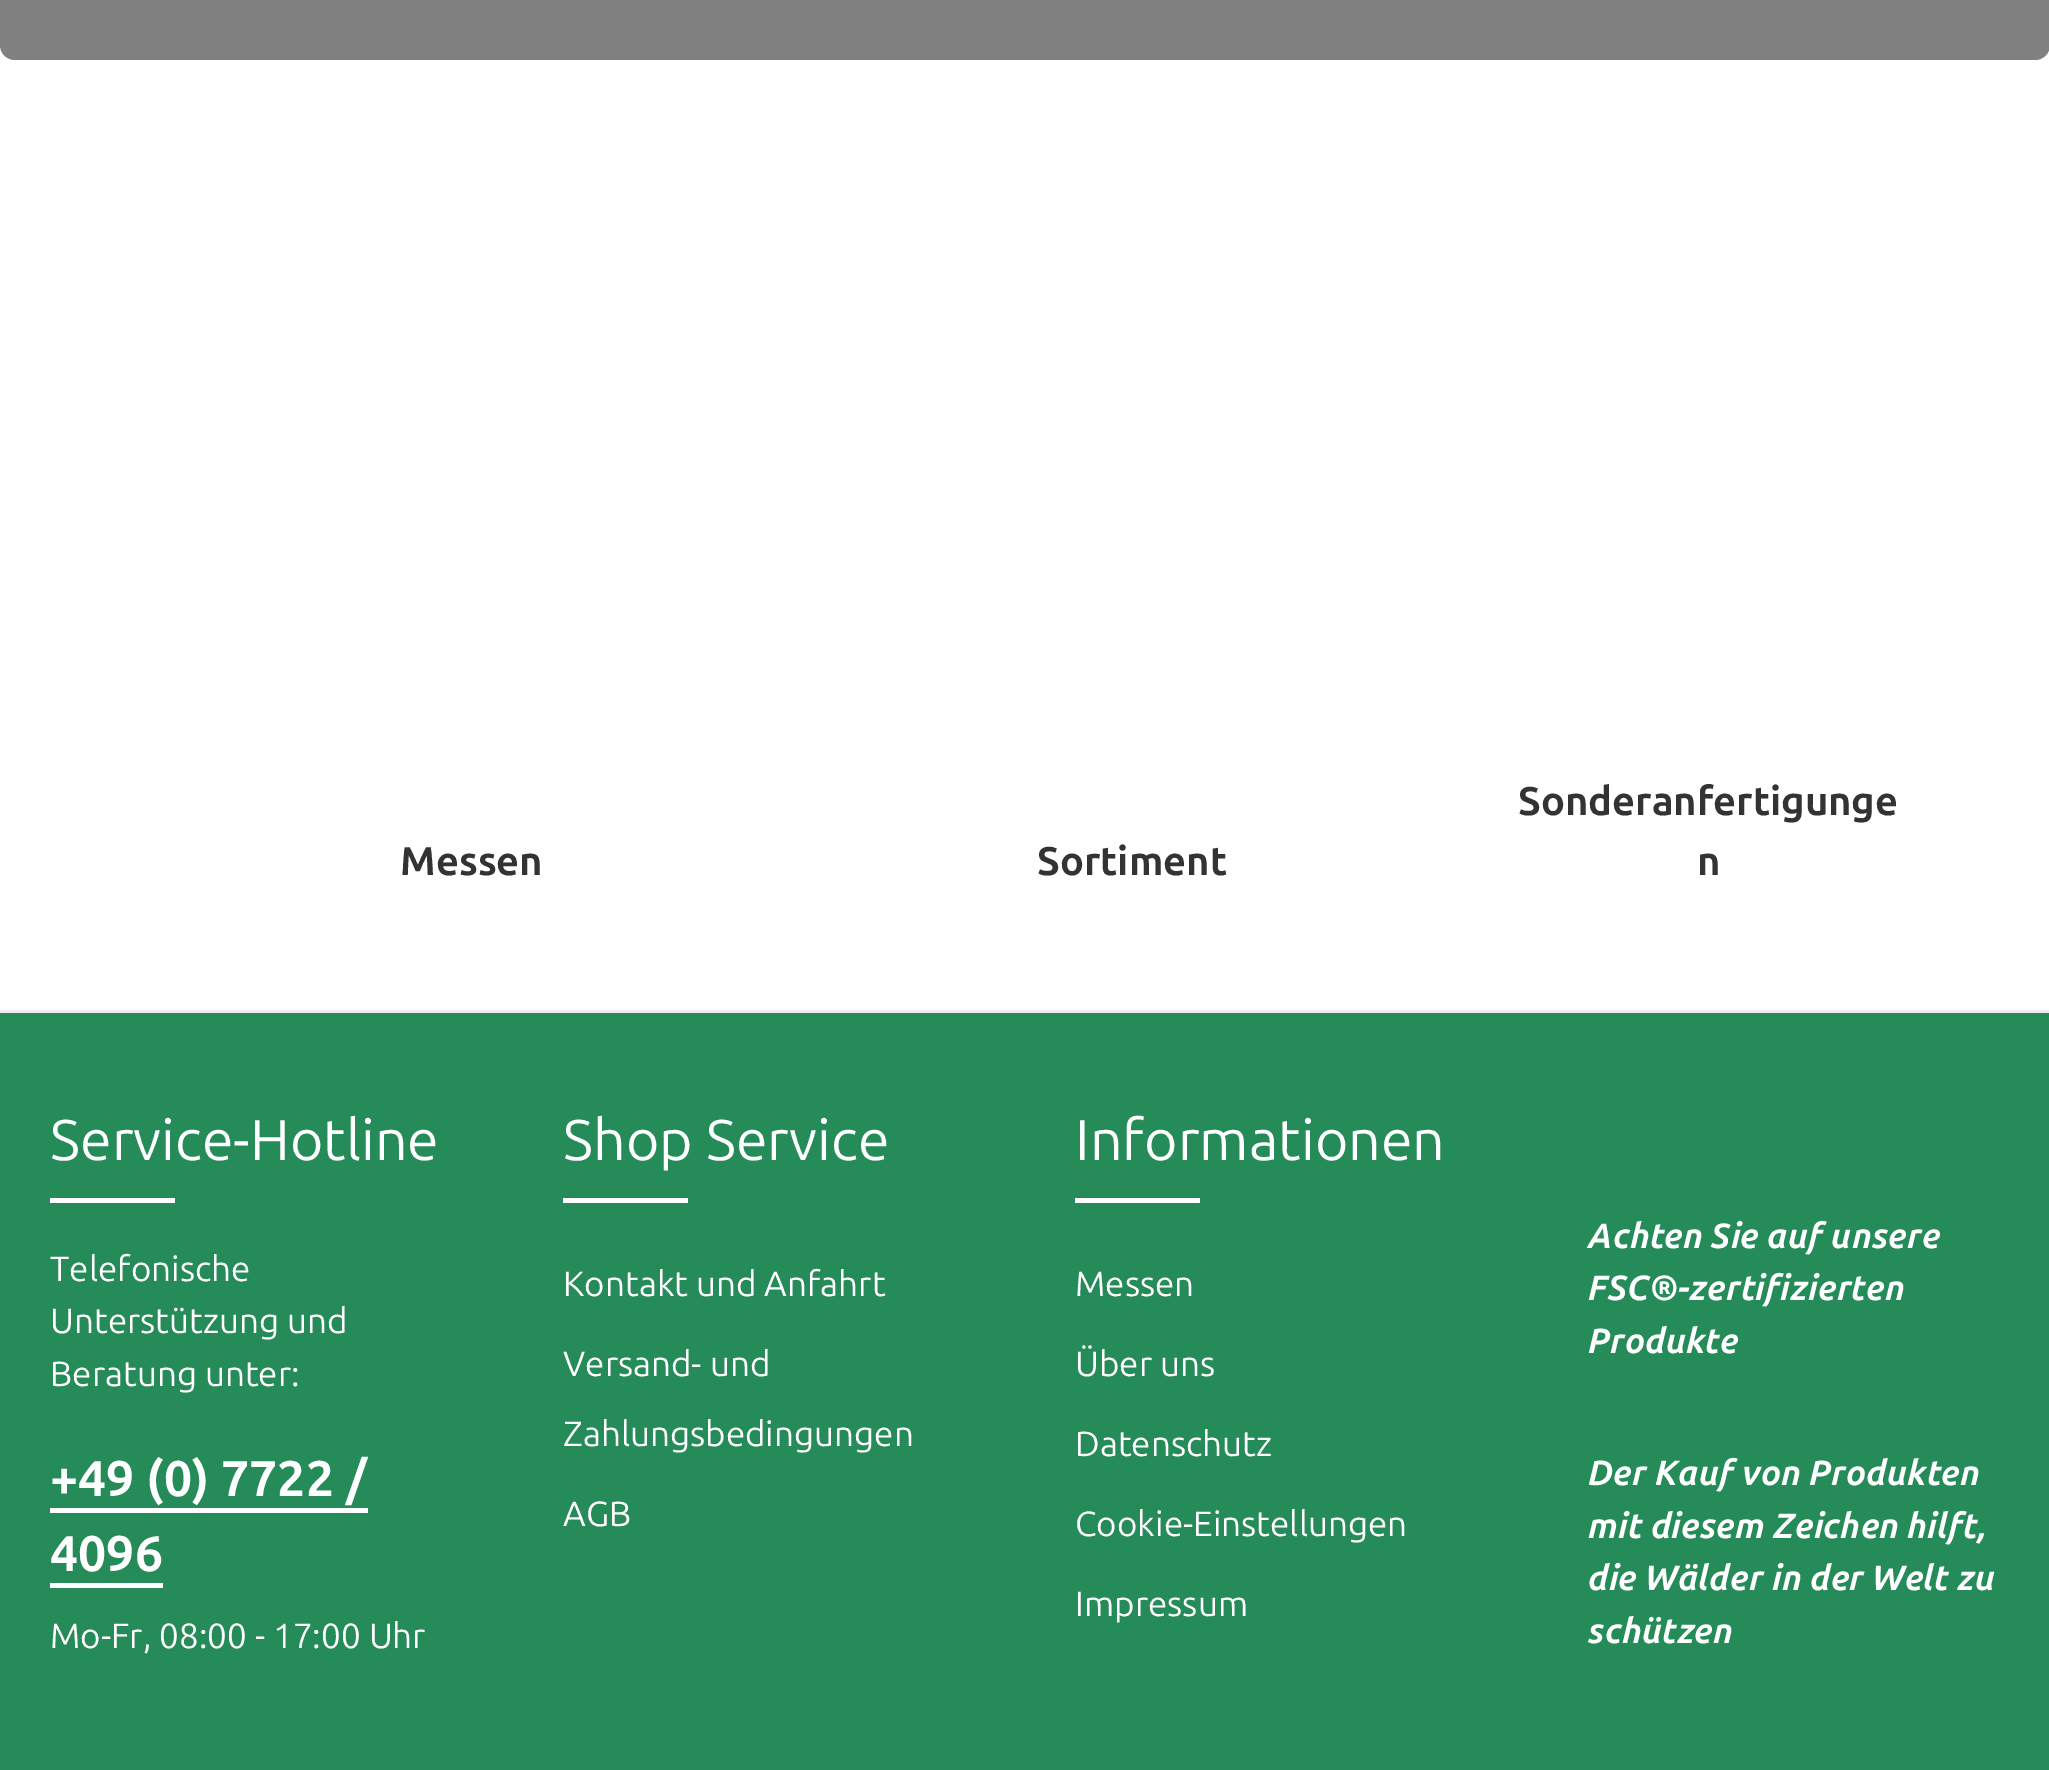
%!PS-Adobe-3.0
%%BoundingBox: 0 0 2049 1770
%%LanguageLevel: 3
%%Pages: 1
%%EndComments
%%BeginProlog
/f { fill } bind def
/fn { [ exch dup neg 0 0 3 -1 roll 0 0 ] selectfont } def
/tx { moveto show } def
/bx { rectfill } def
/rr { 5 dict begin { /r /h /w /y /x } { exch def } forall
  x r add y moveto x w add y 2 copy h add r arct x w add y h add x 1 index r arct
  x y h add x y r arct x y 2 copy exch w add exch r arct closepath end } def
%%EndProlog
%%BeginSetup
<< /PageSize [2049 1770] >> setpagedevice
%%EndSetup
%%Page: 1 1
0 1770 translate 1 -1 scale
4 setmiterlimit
1 setgray
0 0 2049 1770 bx
0.502 setgray
0 -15 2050 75 15 rr f
/Ubuntu-Bold 40 fn
0.2 setgray
(Messen) 400 875 tx
(Sortiment) 1037 875 tx
(Sonderanfertigunge) 1518 815 tx
(n) 1697 875 tx
0.145 0.545 0.345 setrgbcolor
0 1013 2049 757 bx
0.918 0.918 0.941 setrgbcolor
0 1010 2049 3 bx
/Ubuntu-Regular 57.25 fn
1 setgray
(Service-Hotline) 50 1160 tx
50 1198 125 5 bx
/Ubuntu-Regular 35 fn
(Telefonische) 50 1281 tx
(Unterstützung und) 50 1333 tx
(Beratung unter:) 50 1386 tx
/Ubuntu-Bold 50 fn
(+49 \(0\) 7722 /) 50 1496 tx
50 1508 318 5 bx
(4096) 50 1571 tx
50 1583 113 5 bx
/Ubuntu-Regular 35 fn
(Mo-Fr, 08:00 - 17:00 Uhr) 50 1648 tx
/Ubuntu-Regular 57.25 fn
(Shop Service) 563 1160 tx
563 1198 125 5 bx
/Ubuntu-Regular 35 fn
(Kontakt und Anfahrt) 563 1296 tx
(Versand- und) 563 1376 tx
(Zahlungsbedingungen) 563 1446 tx
(AGB) 563 1526 tx
/Ubuntu-Regular 57.25 fn
(Informationen) 1075 1160 tx
1075 1198 125 5 bx
/Ubuntu-Regular 35 fn
(Messen) 1075 1296 tx
(Über uns) 1075 1376 tx
(Datenschutz) 1075 1456 tx
(Cookie-Einstellungen) 1075 1536 tx
(Impressum) 1075 1616 tx
/Ubuntu-BoldItalic 35 fn
(Achten Sie auf unsere) 1588 1248 tx
(FSC®-zertifizierten) 1588 1300 tx
(Produkte) 1588 1353 tx
(Der Kauf von Produkten) 1588 1485 tx
(mit diesem Zeichen hilft,) 1588 1538 tx
(die Wälder in der Welt zu) 1588 1590 tx
(schützen) 1588 1643 tx
showpage
%%EOF
